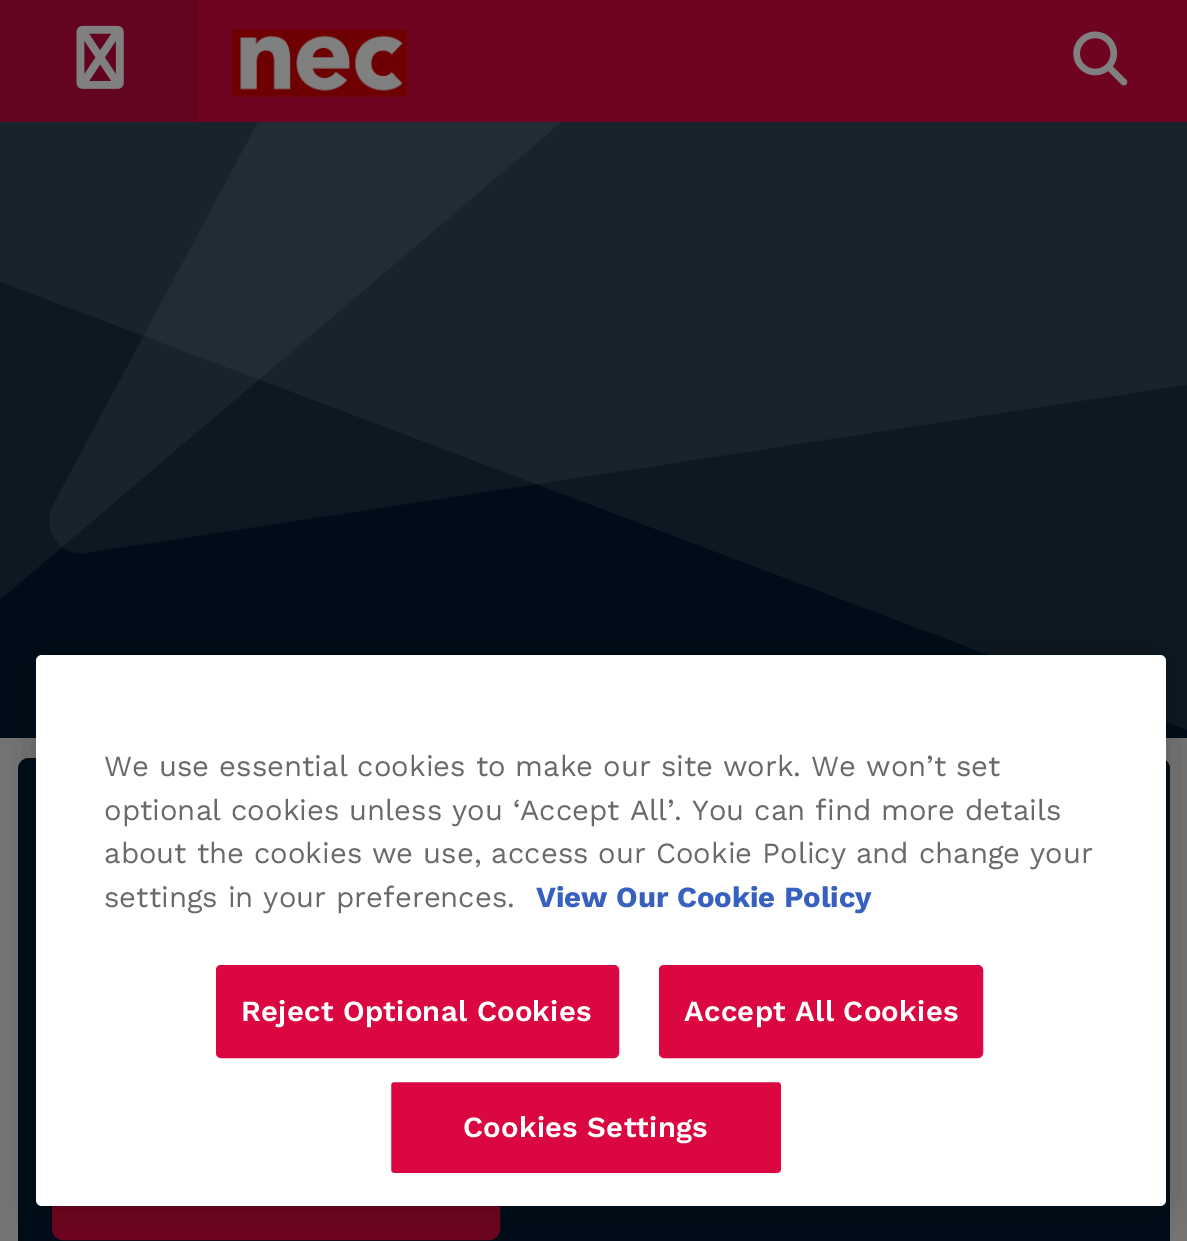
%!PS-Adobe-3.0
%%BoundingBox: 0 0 1187 1241
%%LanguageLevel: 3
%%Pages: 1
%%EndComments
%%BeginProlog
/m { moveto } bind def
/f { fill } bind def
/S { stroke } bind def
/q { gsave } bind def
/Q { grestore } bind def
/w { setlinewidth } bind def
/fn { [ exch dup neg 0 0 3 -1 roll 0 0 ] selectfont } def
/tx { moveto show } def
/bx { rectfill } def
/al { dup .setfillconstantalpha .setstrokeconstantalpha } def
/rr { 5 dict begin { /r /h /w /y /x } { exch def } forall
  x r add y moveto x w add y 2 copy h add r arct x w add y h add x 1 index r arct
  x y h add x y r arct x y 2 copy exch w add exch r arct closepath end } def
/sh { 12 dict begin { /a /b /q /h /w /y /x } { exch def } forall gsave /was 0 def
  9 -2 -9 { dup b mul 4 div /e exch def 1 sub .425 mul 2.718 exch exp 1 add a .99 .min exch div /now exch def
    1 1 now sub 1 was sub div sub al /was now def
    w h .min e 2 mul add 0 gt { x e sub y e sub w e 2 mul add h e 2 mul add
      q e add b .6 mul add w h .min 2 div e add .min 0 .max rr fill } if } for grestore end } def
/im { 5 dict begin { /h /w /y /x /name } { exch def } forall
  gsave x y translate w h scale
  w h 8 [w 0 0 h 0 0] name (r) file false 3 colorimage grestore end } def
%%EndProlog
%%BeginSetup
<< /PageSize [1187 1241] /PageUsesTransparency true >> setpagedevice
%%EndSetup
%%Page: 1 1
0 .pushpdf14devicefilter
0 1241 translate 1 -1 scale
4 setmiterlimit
0.459 setgray
0 0 1187 1241 bx
0.431 0.016 0.125 setrgbcolor
198 0 989 122 bx
0.388 0.02 0.122 setrgbcolor
0 0 198 122 bx
(image0.raw) 76 25 48 64 im
(image1.raw) 231 29 177 68 im
(image2.raw) 1073 31 55 55 im
(image3.raw) 0 122 1187 616 im
0 0.051 0.094 setrgbcolor
18 758 1152 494 11 rr f
0.431 0.016 0.125 setrgbcolor
53 1119 446 120 10 rr q f Q
2 w
S
0 setgray
36 655 1130 551 6 20 0.2 sh
1 setgray
36 655 1130 551 6 rr f
/WorkSans-Regular 29.25 fn
0.412 setgray
(We use essential cookies to make our site work. We won’t set) 104 776 tx
(optional cookies unless you ‘Accept All’. You can find more details) 104 820 tx
(about the cookies we use, access our Cookie Policy and change your) 104 863 tx
(settings in your preferences.) 104 907 tx
/WorkSans-Bold 29.25 fn
0.22 0.376 0.745 setrgbcolor
(View Our Cookie Policy) 536 907 tx
0.859 0.027 0.251 setrgbcolor
217 966 401 91 4 rr q f Q
S
/WorkSans-SemiBold 29.25 fn
1 setgray
241 1021 m 0.25 0 (Reject Optional Cookies) ashow
0.859 0.027 0.251 setrgbcolor
660 966 322 91 4 rr q f Q
S
1 setgray
684 1021 m 0.25 0 (Accept All Cookies) ashow
0.859 0.027 0.251 setrgbcolor
390 1081 392 93 4 rr q f Q
1 setgray
S
463 1137 m 0.25 0 (Cookies Settings) ashow
.poppdf14devicefilter showpage
%%EOF
